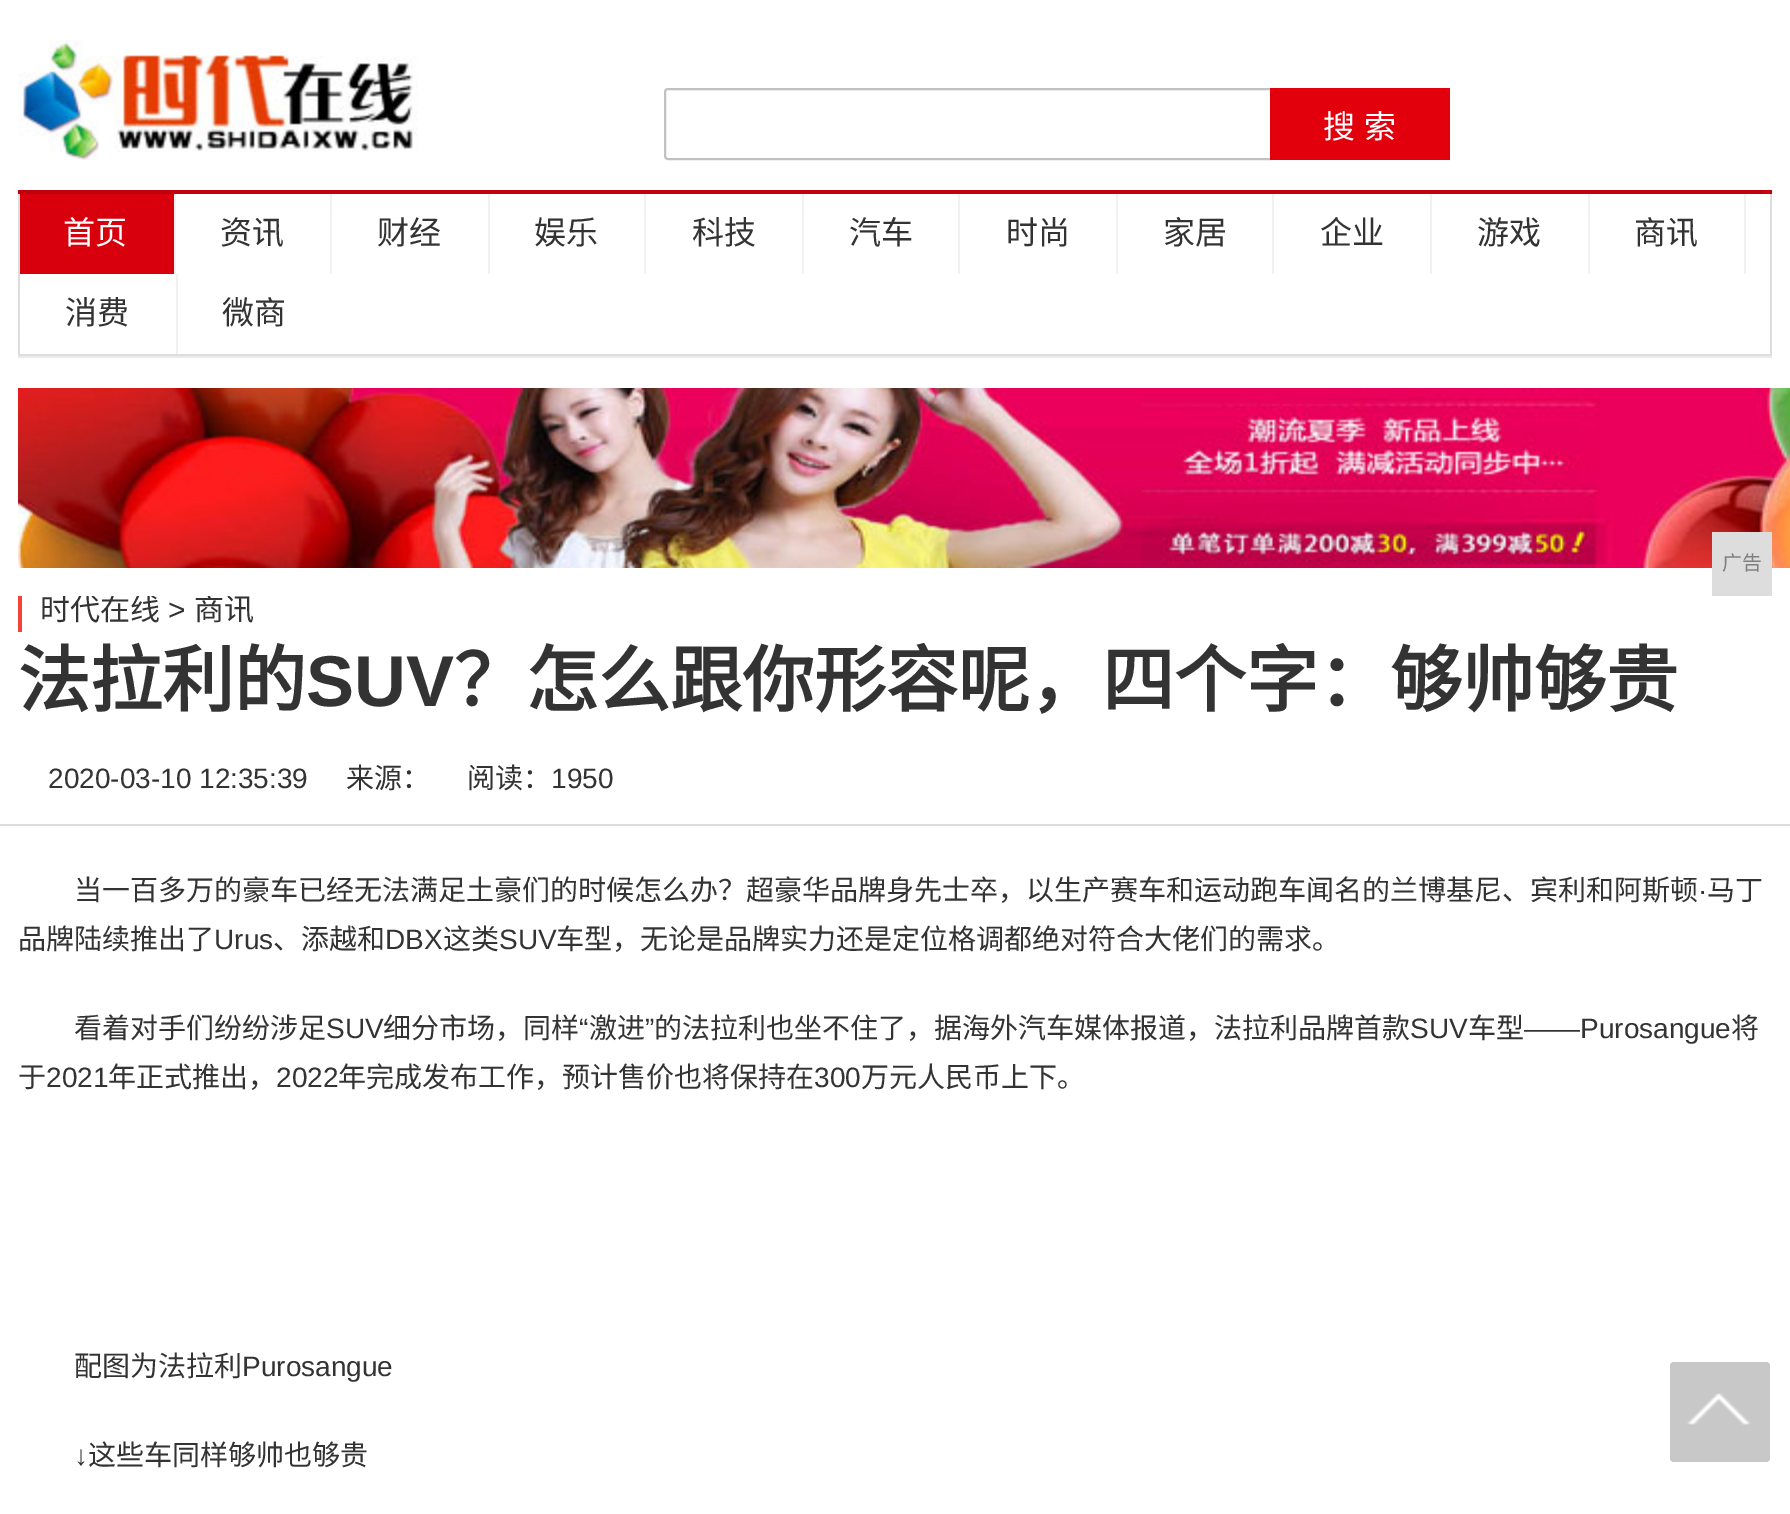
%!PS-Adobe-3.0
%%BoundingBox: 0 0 1790 1514
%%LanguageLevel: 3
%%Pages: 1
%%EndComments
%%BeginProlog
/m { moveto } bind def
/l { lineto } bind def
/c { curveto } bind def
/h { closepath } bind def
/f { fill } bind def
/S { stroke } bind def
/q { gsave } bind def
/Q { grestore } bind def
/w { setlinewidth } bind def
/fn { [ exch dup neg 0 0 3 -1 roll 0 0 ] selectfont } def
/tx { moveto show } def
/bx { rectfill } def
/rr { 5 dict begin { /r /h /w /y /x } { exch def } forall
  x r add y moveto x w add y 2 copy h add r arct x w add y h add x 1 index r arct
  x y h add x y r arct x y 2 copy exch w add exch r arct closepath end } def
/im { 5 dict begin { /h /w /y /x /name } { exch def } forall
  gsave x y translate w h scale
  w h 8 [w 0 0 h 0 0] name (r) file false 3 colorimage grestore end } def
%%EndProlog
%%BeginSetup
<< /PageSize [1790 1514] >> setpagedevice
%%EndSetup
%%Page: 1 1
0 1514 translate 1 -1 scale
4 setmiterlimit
1 setgray
0 0 1790 1514 bx
(image0.raw) 18 40 400 120 im
0.757 setgray
2 w
668 89 m 1271 89 l 1271 159 l 668 159 l 666.5 159 665 157.5 665 156 c 665 92 l 665 90.5 666.5 89 668 89 c h S
0.886 0 0.051 setrgbcolor
1270 88 180 72 bx
/NotoSansCJKSC-Regular 32 fn
1 setgray
1323 138 m 2 0 32 (搜 索) widthshow
0.761 0 0.043 setrgbcolor
18 190 1754 4 bx
0.918 setgray
18 356 1754 2 bx
0.867 setgray
1770 194 2 162 bx
18 354 1754 2 bx
18 194 2 162 bx
0.945 setgray
174 194 2 80 bx
0.843 0 0.047 setrgbcolor
20 194 154 80 bx
1 setgray
(首页) 63 244 tx
0.945 setgray
330 194 2 80 bx
0.2 setgray
(资讯) 220 244 tx
0.945 setgray
488 194 2 80 bx
0.2 setgray
(财经) 377 244 tx
0.945 setgray
644 194 2 80 bx
0.2 setgray
(娱乐) 534 244 tx
0.945 setgray
802 194 2 80 bx
0.2 setgray
(科技) 692 244 tx
0.945 setgray
958 194 2 80 bx
0.2 setgray
(汽车) 849 244 tx
0.945 setgray
1116 194 2 80 bx
0.2 setgray
(时尚) 1006 244 tx
0.945 setgray
1272 194 2 80 bx
0.2 setgray
(家居) 1163 244 tx
0.945 setgray
1430 194 2 80 bx
0.2 setgray
(企业) 1320 244 tx
0.945 setgray
1588 194 2 80 bx
0.2 setgray
(游戏) 1477 244 tx
0.945 setgray
1744 194 2 80 bx
0.2 setgray
(商讯) 1634 244 tx
0.945 setgray
176 274 2 80 bx
0.2 setgray
(消费) 65 324 tx
(微商) 222 324 tx
(image1.raw) 18 388 1772 180 im
0.867 setgray
1712 532 60 64 bx
/NotoSansCJKSC-Regular 20 fn
0.502 setgray
(广告) 1722 570 tx
0.965 0.263 0.224 setrgbcolor
18 596 4 36 bx
q
22 596 1750 36 rectclip
/NotoSansCJKSC-Regular 30 fn
0.2 setgray
(时代在线) 40 620 tx
Q
/LiberationSans-Regular 30 fn
0.2 setgray
(>) 168 620 tx
q
22 596 1750 36 rectclip
/NotoSansCJKSC-Regular 30 fn
(商讯) 194 620 tx
Q
/NotoSansCJKSC-Bold 72 fn
(法拉利的) 18 706 tx
/LiberationSans-Bold 72 fn
(SUV) 306 706 tx
/NotoSansCJKSC-Bold 72 fn
(？怎么跟你形容呢，四个字：够帅够贵) 454 706 tx
0.867 setgray
0 824 1790 2 bx
/LiberationSans-Regular 28 fn
0.2 setgray
(2020-03-10 12:35:39) 48 788 tx
/NotoSansCJKSC-Regular 28 fn
(来源：) 346 788 tx
(阅读：) 467 788 tx
/LiberationSans-Regular 28 fn
(1950) 551 788 tx
/NotoSansCJKSC-Regular 28 fn
(当一百多万的豪车已经无法满足土豪们的时候怎么办？超豪华品牌身先士卒，以生产赛车和运动跑车闻名的兰博基尼、宾利和阿斯顿) 74 900 tx
/LiberationSans-Regular 28 fn
(·) 1698 900 tx
/NotoSansCJKSC-Regular 28 fn
(马丁) 1707 900 tx
(品牌陆续推出了) 18 949 tx
/LiberationSans-Regular 28 fn
(Urus) 214 949 tx
/NotoSansCJKSC-Regular 28 fn
(、添越和) 273 949 tx
/LiberationSans-Regular 28 fn
(DBX) 385 949 tx
/NotoSansCJKSC-Regular 28 fn
(这类) 443 949 tx
/LiberationSans-Regular 28 fn
(SUV) 499 949 tx
/NotoSansCJKSC-Regular 28 fn
(车型，无论是品牌实力还是定位格调都绝对符合大佬们的需求。) 556 949 tx
(看着对手们纷纷涉足) 74 1038 tx
/LiberationSans-Regular 28 fn
(SUV) 326 1038 tx
/NotoSansCJKSC-Regular 28 fn
(细分市场，同样) 383 1038 tx
/LiberationSans-Regular 28 fn
(“) 579 1038 tx
/NotoSansCJKSC-Regular 28 fn
(激进) 589 1038 tx
/LiberationSans-Regular 28 fn
(”) 645 1038 tx
/NotoSansCJKSC-Regular 28 fn
(的法拉利也坐不住了，据海外汽车媒体报道，法拉利品牌首款) 654 1038 tx
/LiberationSans-Regular 28 fn
(SUV) 1410 1038 tx
/NotoSansCJKSC-Regular 28 fn
(车型) 1468 1038 tx
/LiberationSans-Regular 28 fn
(——Purosangue) 1524 1038 tx
/NotoSansCJKSC-Regular 28 fn
(将) 1731 1038 tx
(于) 18 1087 tx
/LiberationSans-Regular 28 fn
(2021) 46 1087 tx
/NotoSansCJKSC-Regular 28 fn
(年正式推出，) 108 1087 tx
/LiberationSans-Regular 28 fn
(2022) 276 1087 tx
/NotoSansCJKSC-Regular 28 fn
(年完成发布工作，预计售价也将保持在) 338 1087 tx
/LiberationSans-Regular 28 fn
(300) 814 1087 tx
/NotoSansCJKSC-Regular 28 fn
(万元人民币上下。) 861 1087 tx
(配图为法拉利) 74 1376 tx
/LiberationSans-Regular 28 fn
(Purosangue) 242 1376 tx
(↓) 74 1465 tx
/NotoSansCJKSC-Regular 28 fn
(这些车同样够帅也够贵) 88 1465 tx
0.784 setgray
1670 1362 100 100 4 rr f
(image2.raw) 1687 1393 64 32 im
showpage
%%EOF
